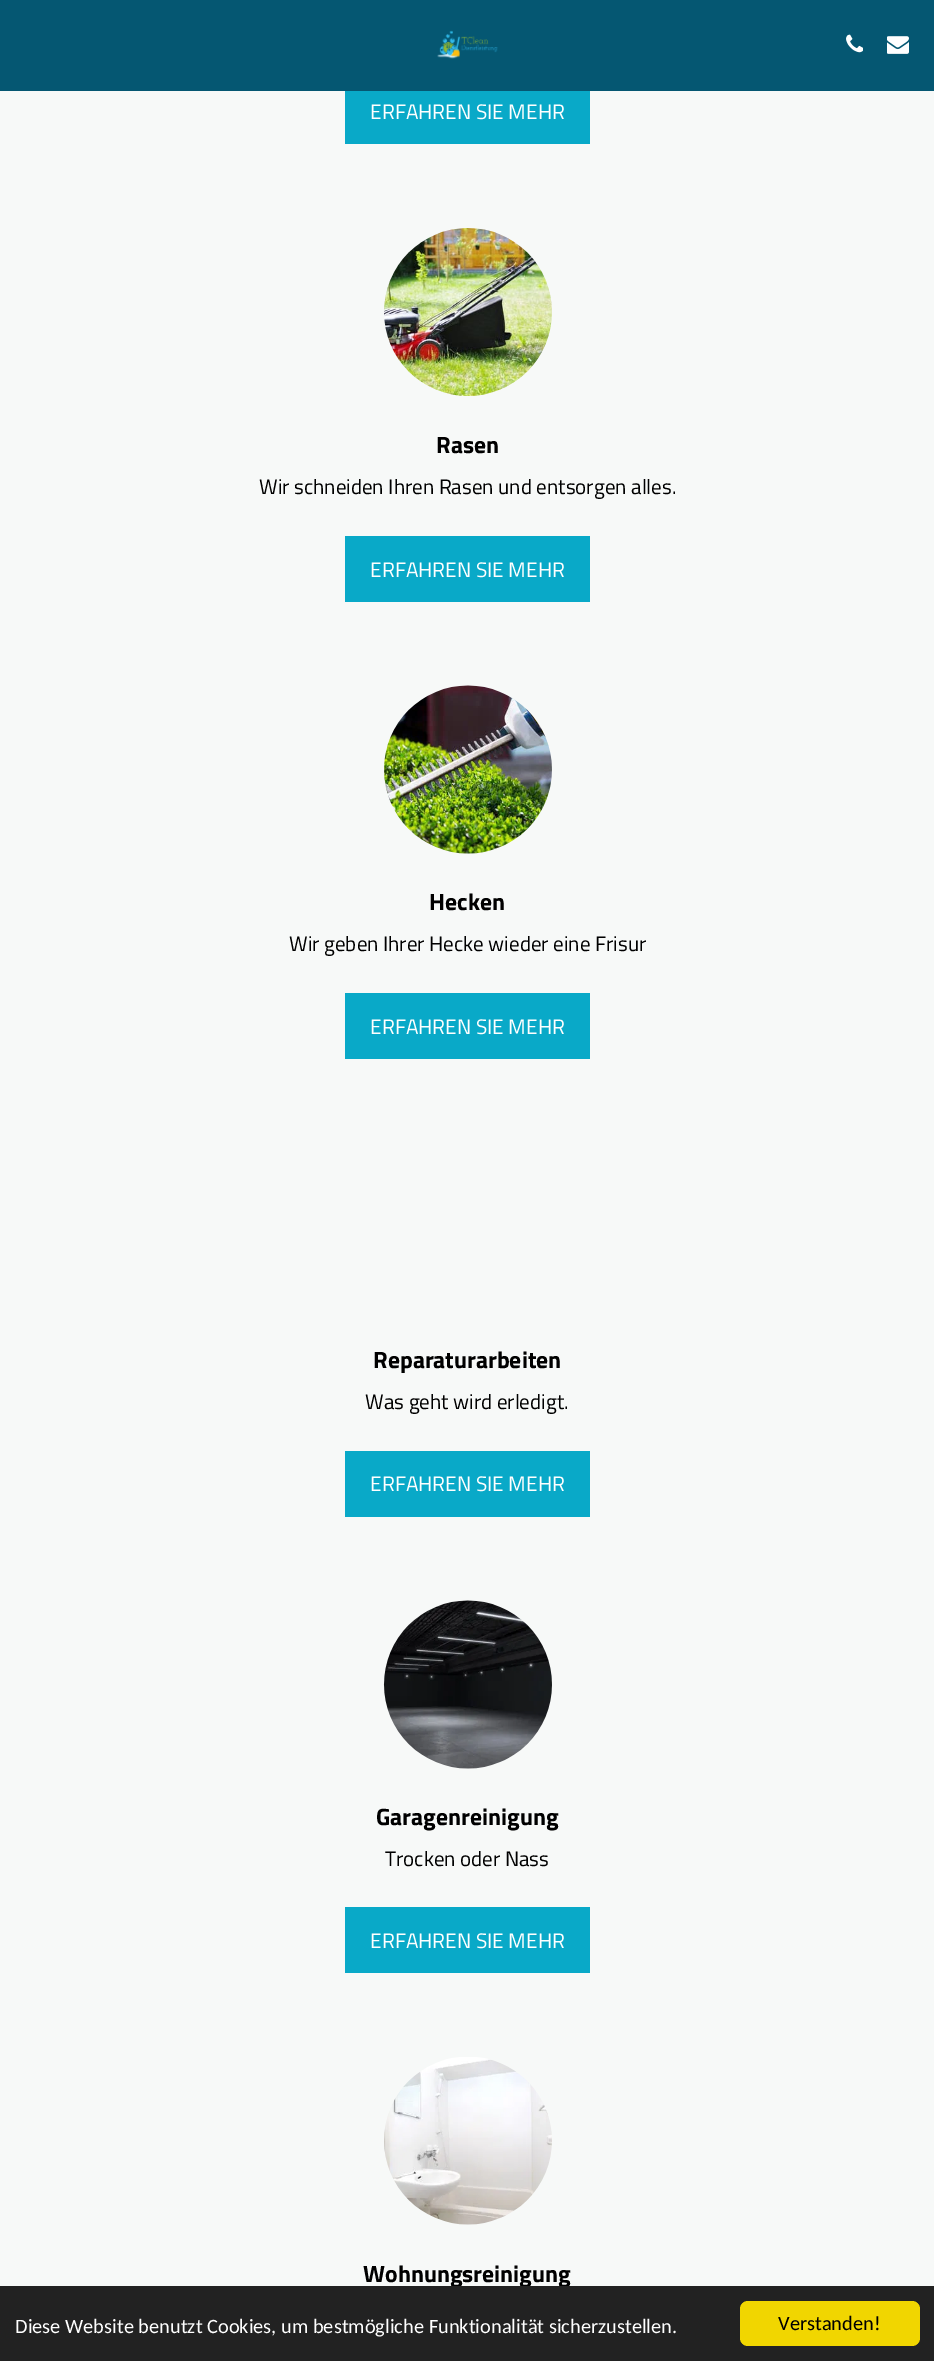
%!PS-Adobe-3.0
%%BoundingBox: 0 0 934 2361
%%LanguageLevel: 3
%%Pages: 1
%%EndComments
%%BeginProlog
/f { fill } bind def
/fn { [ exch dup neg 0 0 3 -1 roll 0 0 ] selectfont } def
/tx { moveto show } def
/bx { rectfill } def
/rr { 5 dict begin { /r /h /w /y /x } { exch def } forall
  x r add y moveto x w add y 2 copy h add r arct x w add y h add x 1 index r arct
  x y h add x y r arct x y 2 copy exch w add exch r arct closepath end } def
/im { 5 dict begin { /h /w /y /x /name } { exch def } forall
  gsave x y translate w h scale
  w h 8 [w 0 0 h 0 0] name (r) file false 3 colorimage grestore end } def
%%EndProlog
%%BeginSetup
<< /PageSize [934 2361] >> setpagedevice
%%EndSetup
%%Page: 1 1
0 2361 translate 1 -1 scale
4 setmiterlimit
0.969 0.976 0.973 setrgbcolor
0 0 934 2361 bx
0.02 0.341 0.447 setrgbcolor
0 0 934 91 bx
(image0.raw) 437 30 61 29 im
(image1.raw) 846 34 17 19 im
(image2.raw) 887 36 22 18 im
0.035 0.663 0.784 setrgbcolor
345 91 245 53 bx
/TitilliumWeb-Regular 21 fn
1 setgray
(ERFAHREN SIE MEHR) 370 119 tx
(image3.raw) 384 228 168 168 im
/TitilliumWeb-Bold 23.6 fn
0 setgray
(Rasen) 436 453 tx
/TitilliumWeb-Regular 21 fn
(Wir schneiden Ihren Rasen und entsorgen alles.) 259 494 tx
0.035 0.663 0.784 setrgbcolor
345 536 245 66 bx
1 setgray
(ERFAHREN SIE MEHR) 370 577 tx
(image4.raw) 384 685 168 169 im
/TitilliumWeb-Bold 23.6 fn
0 setgray
(Hecken) 429 910 tx
/TitilliumWeb-Regular 21 fn
(Wir geben Ihrer Hecke wieder eine Frisur) 289 951 tx
0.035 0.663 0.784 setrgbcolor
345 993 245 66 bx
1 setgray
(ERFAHREN SIE MEHR) 370 1034 tx
/TitilliumWeb-Bold 23.6 fn
0 setgray
(Reparaturarbeiten) 373 1368 tx
/TitilliumWeb-Regular 21 fn
(Was geht wird erledigt.) 365 1409 tx
0.035 0.663 0.784 setrgbcolor
345 1451 245 66 bx
1 setgray
(ERFAHREN SIE MEHR) 370 1491 tx
(image5.raw) 383 1600 169 169 im
/TitilliumWeb-Bold 23.6 fn
0 setgray
(Garagenreinigung) 376 1825 tx
/TitilliumWeb-Regular 21 fn
(Trocken oder Nass) 385 1866 tx
0.035 0.663 0.784 setrgbcolor
345 1907 245 66 bx
1 setgray
(ERFAHREN SIE MEHR) 370 1948 tx
(image6.raw) 384 2057 168 168 im
/TitilliumWeb-Bold 23.6 fn
0 setgray
(Wohnungsreinigung) 363 2282 tx
0.133 setgray
0 2286 934 75 bx
/Carlito-Regular 20.4 fn
1 setgray
(Diese Website benutzt Cookies, um bestmögliche Funktionalität sicherzustellen.) 15 2333 tx
0.945 0.839 0 setrgbcolor
740 2301 180 45 8 rr f
0 setgray
(Verstanden!) 778 2330 tx
showpage
%%EOF
